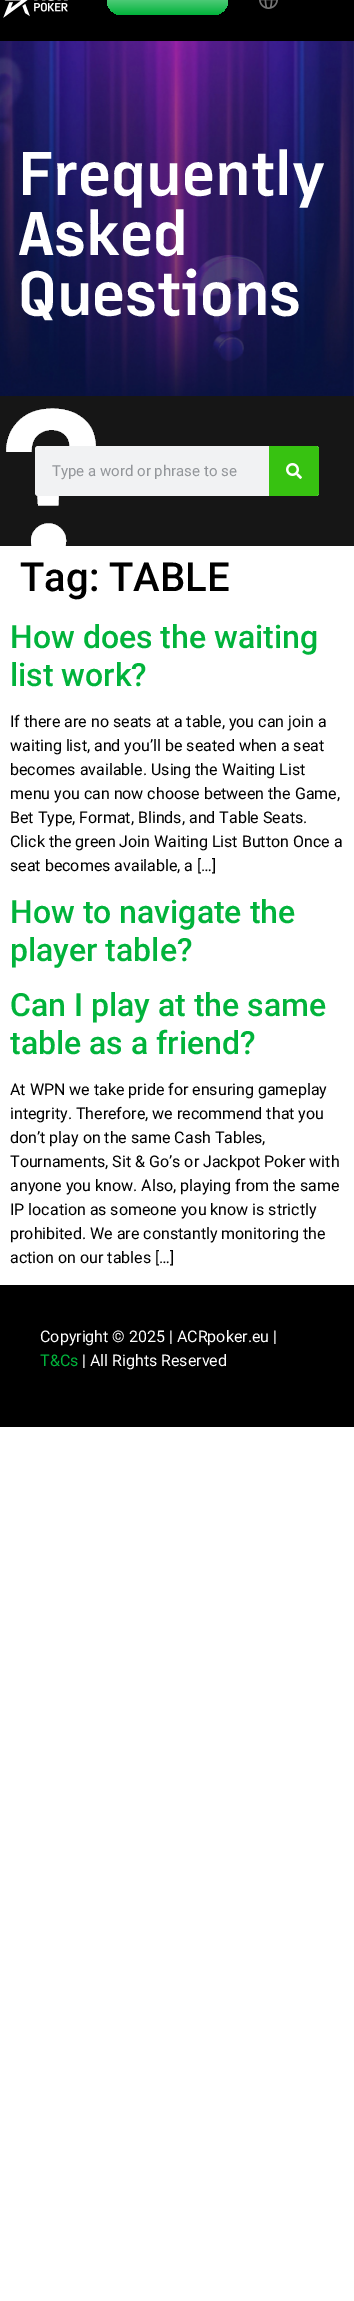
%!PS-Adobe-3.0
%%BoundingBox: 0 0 354 2301
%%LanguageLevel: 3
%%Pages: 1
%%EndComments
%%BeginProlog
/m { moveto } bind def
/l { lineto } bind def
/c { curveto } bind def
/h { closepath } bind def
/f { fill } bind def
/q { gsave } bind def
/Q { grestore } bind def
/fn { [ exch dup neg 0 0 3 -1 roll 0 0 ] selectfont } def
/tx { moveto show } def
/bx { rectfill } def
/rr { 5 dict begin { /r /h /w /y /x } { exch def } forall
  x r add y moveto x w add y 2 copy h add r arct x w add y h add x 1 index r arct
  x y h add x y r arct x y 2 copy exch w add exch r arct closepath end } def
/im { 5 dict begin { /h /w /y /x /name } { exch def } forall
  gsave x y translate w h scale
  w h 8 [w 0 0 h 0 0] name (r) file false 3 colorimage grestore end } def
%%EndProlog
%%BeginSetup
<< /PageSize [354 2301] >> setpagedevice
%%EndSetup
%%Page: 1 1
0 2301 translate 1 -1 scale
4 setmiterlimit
1 setgray
0 0 354 2301 bx
0 setgray
0 0 354 41 bx
(image0.raw) 3 0 65 18 im
q 107 -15 121 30 15 rr clip newpath
<< /ShadingType 2 /ColorSpace /DeviceRGB /Coords [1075 -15 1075 15] /Extend [true true] /Function << /FunctionType 3 /Domain [0 1] /Functions [<< /FunctionType 2 /Domain [0 1] /C0 [0.004 0.702 0.231] /C1 [0.302 0.792 0.463] /N 1 >> << /FunctionType 2 /Domain [0 1] /C0 [0.302 0.792 0.463] /C1 [0.004 0.702 0.231] /N 1 >>] /Bounds [0.5] /Encode [0 1 0 1] >> >> shfill Q
(image1.raw) 259 0 19 9 im
(image2.raw) 0 41 354 355 im
/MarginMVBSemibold-SemiBold 60 fn
1 setgray
(Frequently) 18 195 tx
(Asked) 18 255 tx
(Questions) 18 315 tx
0.086 setgray
0 396 354 150 bx
(image3.raw) 6 408 90 138 im
0.945 0.949 0.953 setrgbcolor
35 446 284 50 3 rr f
/Roboto-Regular 15 fn
0.576 0.588 0.604 setrgbcolor
(Type a word or phrase to se) 52 476 tx
0.216 0.761 0.067 setrgbcolor
269 446 m 316 446 l 317.5 446 319 447.5 319 449 c 319 493 l 319 494.5 317.5 496 316 496 c 269 496 l h f
(image4.raw) 286 463 16 16 im
/Roboto-Medium 40 fn
0 setgray
(Tag: TABLE) 20 591 tx
/Roboto-Medium 32 fn
0.004 0.702 0.231 setrgbcolor
(How does the waiting) 10 648 tx
(list work?) 10 686 tx
/Roboto-Regular 16 fn
0 setgray
(If there are no seats at a table, you can join a) 10 727 tx
(waiting list, and you’ll be seated when a seat) 10 751 tx
(becomes available. Using the Waiting List) 10 775 tx
(menu you can now choose between the Game,) 10 799 tx
(Bet Type, Format, Blinds, and Table Seats.) 10 823 tx
(Click the green Join Waiting List Button Once a) 10 847 tx
(seat becomes available, a […]) 10 871 tx
/Roboto-Medium 32 fn
0.004 0.702 0.231 setrgbcolor
(How to navigate the) 10 923 tx
(player table?) 10 961 tx
(Can I play at the same) 10 1016 tx
(table as a friend?) 10 1054 tx
/Roboto-Regular 16 fn
0 setgray
(At WPN we take pride for ensuring gameplay) 10 1095 tx
(integrity. Therefore, we recommend that you) 10 1119 tx
(don’t play on the same Cash Tables,) 10 1143 tx
(Tournaments, Sit & Go’s or Jackpot Poker with) 10 1167 tx
(anyone you know. Also, playing from the same) 10 1191 tx
(IP location as someone you know is strictly) 10 1215 tx
(prohibited. We are constantly monitoring the) 10 1239 tx
(action on our tables […]) 10 1263 tx
0 1285 354 142 bx
1 setgray
(Copyright © 2025 | ACRpoker.eu |) 40 1342 tx
0.004 0.702 0.231 setrgbcolor
(T&Cs) 40 1366 tx
1 setgray
(| All Rights Reserved) 82 1366 tx
showpage
%%EOF
